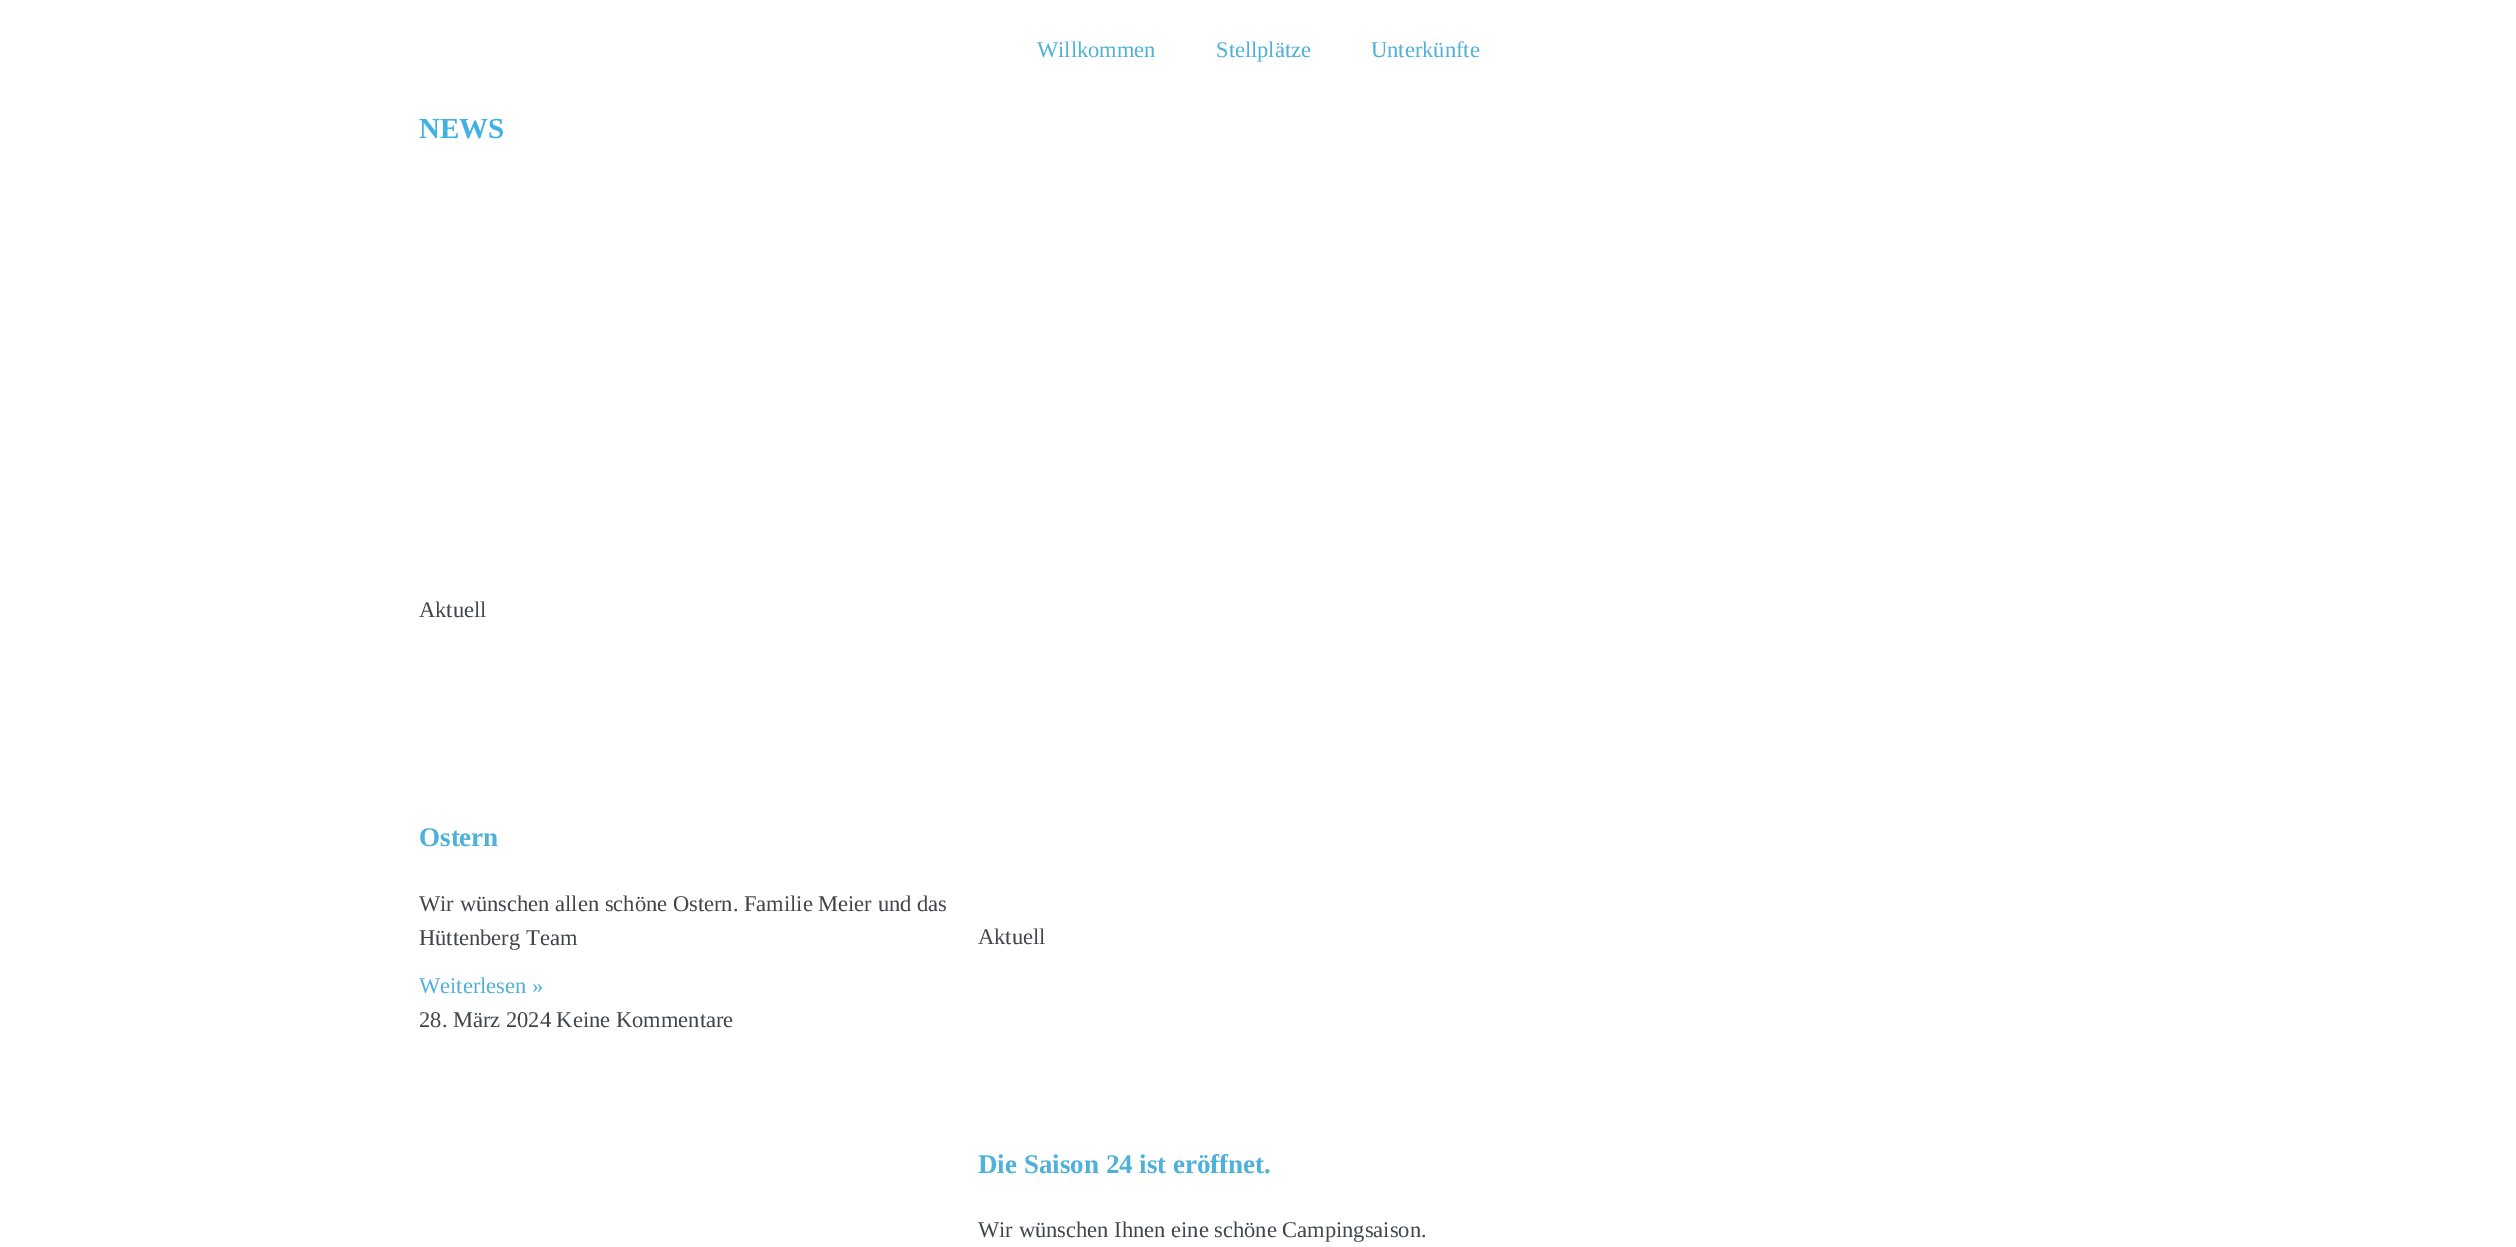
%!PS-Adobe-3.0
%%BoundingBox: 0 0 2516 1247
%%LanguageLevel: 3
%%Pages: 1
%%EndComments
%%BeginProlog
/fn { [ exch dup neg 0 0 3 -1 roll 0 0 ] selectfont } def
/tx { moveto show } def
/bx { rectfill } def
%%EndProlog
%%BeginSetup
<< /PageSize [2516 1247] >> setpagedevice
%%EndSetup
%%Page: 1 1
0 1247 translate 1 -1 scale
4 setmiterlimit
1 setgray
0 0 2516 1247 bx
/LiberationSerif-Regular 22.5 fn
0.306 0.694 0.859 setrgbcolor
(Willkommen) 1037 57 tx
(Stellplätze) 1216 57 tx
(Unterkünfte) 1371 57 tx
/LiberationSerif-Bold 29 fn
0.247 0.694 0.886 setrgbcolor
(NEWS) 419 138 tx
/LiberationSerif-Regular 22.5 fn
0.255 0.275 0.298 setrgbcolor
(Aktuell) 419 617 tx
/LiberationSerif-Bold 27 fn
0.306 0.694 0.859 setrgbcolor
(Ostern) 419 846 tx
/LiberationSerif-Regular 22.5 fn
0.255 0.275 0.298 setrgbcolor
(Wir wünschen allen schöne Ostern. Familie Meier und das) 419 911 tx
(Hüttenberg Team) 419 945 tx
0.306 0.694 0.859 setrgbcolor
(Weiterlesen ») 419 993 tx
0.255 0.275 0.298 setrgbcolor
(28. März 2024 Keine Kommentare) 419 1027 tx
(Aktuell) 978 944 tx
/LiberationSerif-Bold 27 fn
0.306 0.694 0.859 setrgbcolor
(Die Saison 24 ist eröffnet.) 978 1173 tx
/LiberationSerif-Regular 22.5 fn
0.255 0.275 0.298 setrgbcolor
(Wir wünschen Ihnen eine schöne Campingsaison.) 978 1237 tx
showpage
%%EOF
